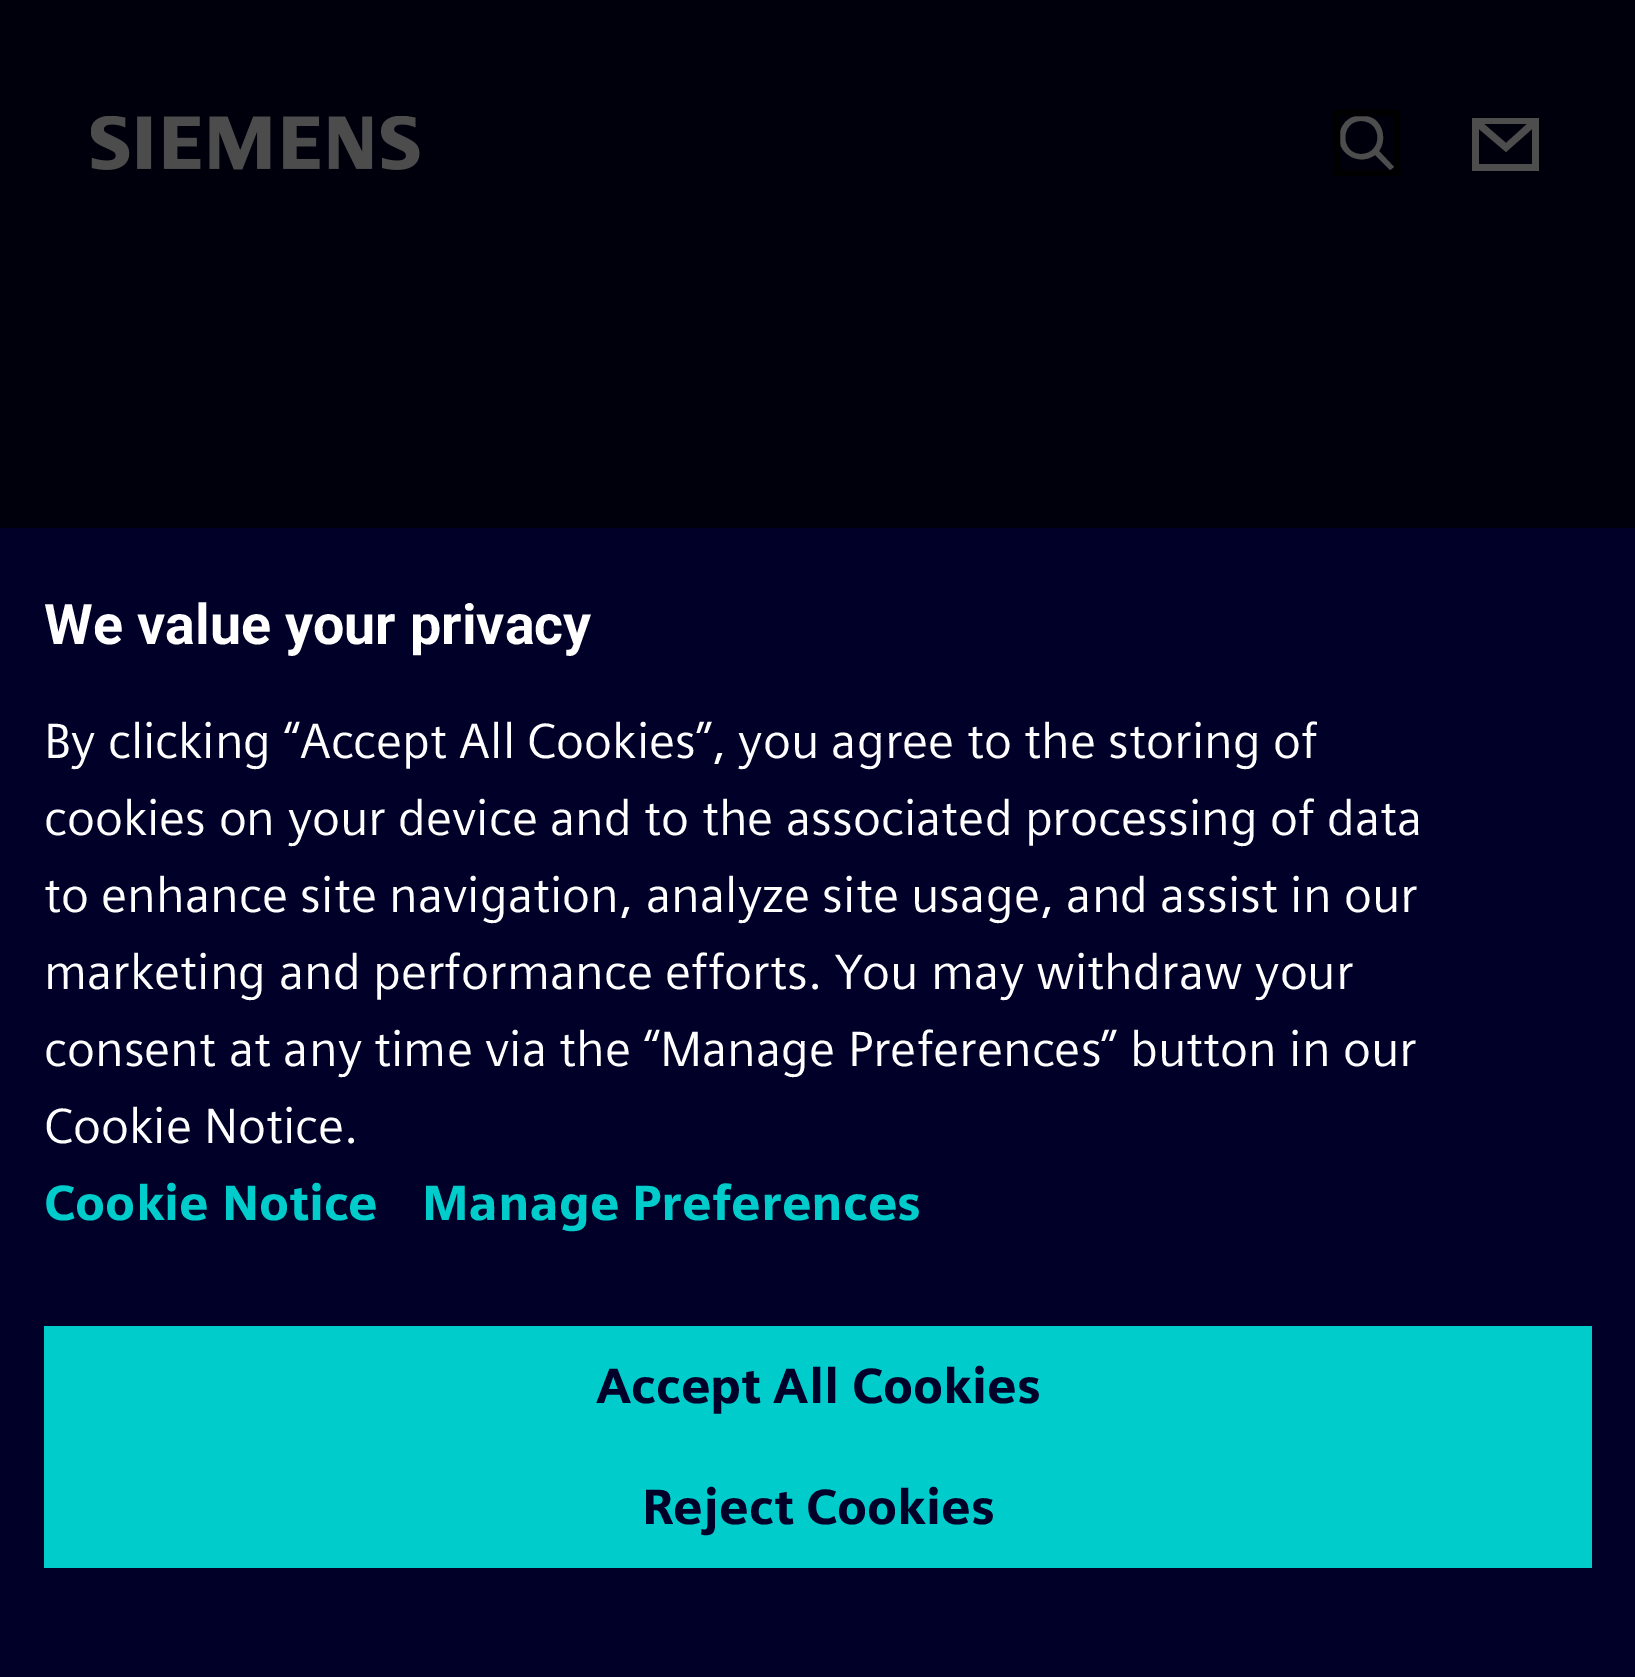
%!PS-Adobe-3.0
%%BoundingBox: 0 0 1635 1677
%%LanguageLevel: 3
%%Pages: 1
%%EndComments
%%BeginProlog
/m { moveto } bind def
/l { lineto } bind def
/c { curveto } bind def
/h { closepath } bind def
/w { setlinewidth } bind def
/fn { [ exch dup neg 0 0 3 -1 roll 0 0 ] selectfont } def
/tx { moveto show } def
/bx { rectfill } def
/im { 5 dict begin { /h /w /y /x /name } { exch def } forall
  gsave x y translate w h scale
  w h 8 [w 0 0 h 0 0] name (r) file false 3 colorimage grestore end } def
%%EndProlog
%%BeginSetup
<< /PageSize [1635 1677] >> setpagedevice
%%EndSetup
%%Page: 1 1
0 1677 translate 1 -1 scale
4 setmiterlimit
0 0 0.047 setrgbcolor
0 0 1635 1677 bx
(image0.raw) 91 116 329 54 im
0.302 setgray
1361 154 m 1340 154 1340 121 1361 121 c 1383 121 1383 154 1361 154 c h 1394 167 m 1379 151 l 1386 141 1384 126 1374 119 c 1367 115 1359 114 1353 117 c 1347 119 1343 124 1341 129 c 1332 150 1357 168 1375 155 c 1390 170 l h eofill
0 setgray
6 w
1337 113 60 60 rectstroke
0.302 setgray
1472 118 m 1472 171 l 1539 171 l 1539 118 l h 1527 124 m 1506 143 l 1484 124 l h 1479 129 m 1479 164 l 1532 164 l 1532 129 l 1506 152 l h eofill
0 0 0.157 setrgbcolor
0 528 1635 1149 bx
/Roboto-Bold 55.75 fn
1 setgray
(We value your privacy) 44 644 tx
/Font-Regular 49.5 fn
(By clicking “Accept All Cookies”, you agree to the storing of) 44 758 tx
(cookies on your device and to the associated processing of data) 44 835 tx
(to enhance site navigation, analyze site usage, and assist in our) 44 912 tx
(marketing and performance efforts. You may withdraw your) 44 989 tx
(consent at any time via the “Manage Preferences” button in our) 44 1066 tx
(Cookie Notice.) 44 1143 tx
/Font-Bold 49.5 fn
0 0.8 0.8 setrgbcolor
(Cookie Notice) 44 1220 tx
(Manage Preferences) 422 1220 tx
44 1326 1548 242 bx
0 0 0.157 setrgbcolor
(Accept All Cookies) 596 1403 tx
(Reject Cookies) 642 1524 tx
showpage
%%EOF
